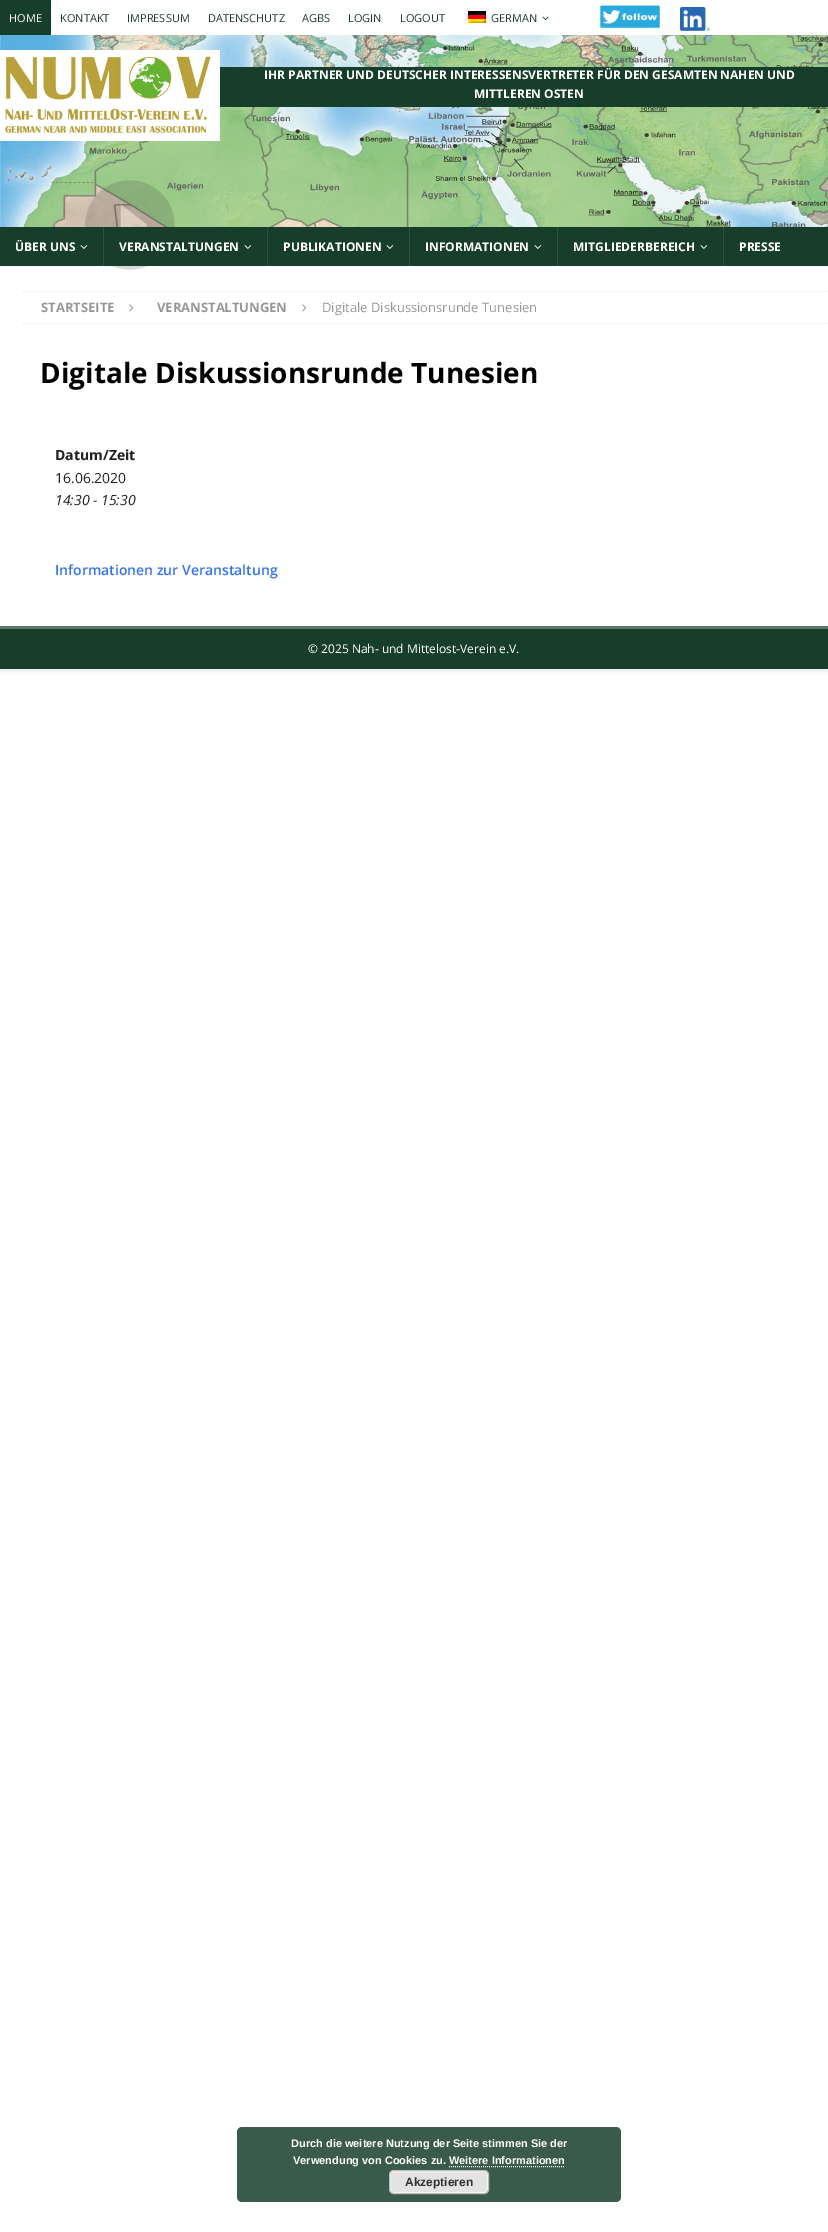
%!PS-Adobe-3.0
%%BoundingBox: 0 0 828 2232
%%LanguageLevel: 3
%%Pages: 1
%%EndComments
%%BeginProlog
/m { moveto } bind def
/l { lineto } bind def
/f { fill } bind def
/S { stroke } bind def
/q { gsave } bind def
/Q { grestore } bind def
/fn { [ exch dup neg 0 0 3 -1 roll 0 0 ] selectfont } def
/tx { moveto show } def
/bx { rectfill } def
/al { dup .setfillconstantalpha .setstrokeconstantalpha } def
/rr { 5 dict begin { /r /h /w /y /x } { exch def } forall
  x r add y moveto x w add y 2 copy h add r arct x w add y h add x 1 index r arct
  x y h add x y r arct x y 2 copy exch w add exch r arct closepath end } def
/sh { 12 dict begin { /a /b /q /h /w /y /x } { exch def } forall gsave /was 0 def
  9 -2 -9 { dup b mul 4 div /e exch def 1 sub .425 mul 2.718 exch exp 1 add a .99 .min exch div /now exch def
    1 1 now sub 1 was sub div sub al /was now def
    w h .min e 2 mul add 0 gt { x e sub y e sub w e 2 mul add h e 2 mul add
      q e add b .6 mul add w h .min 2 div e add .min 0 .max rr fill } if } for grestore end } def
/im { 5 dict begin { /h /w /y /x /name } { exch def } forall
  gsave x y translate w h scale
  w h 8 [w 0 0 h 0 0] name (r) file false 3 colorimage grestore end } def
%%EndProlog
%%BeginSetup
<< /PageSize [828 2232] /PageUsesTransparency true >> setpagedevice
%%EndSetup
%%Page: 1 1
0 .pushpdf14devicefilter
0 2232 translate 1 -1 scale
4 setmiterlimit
1 setgray
0 0 828 2232 bx
q
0 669 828 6 rectclip
0.196 setgray
0 0 828 669 0 5 0.17 sh
Q
0.09 0.243 0.169 setrgbcolor
0 0 51 35 bx
/OpenSans-Regular 11 fn
1 setgray
(HOME) 9 22 tx
0.09 0.243 0.169 setrgbcolor
(KONTAKT) 60 22 tx
(IMPRESSUM) 127 22 tx
(DATENSCHUTZ) 208 22 tx
(AGBS) 302 22 tx
(LOGIN) 348 22 tx
(LOGOUT) 400 22 tx
(image0.raw) 468 11 18 12 im
(GERMAN) 491 22 tx
(image1.raw) 542 16 7 5 im
(image2.raw) 600 5 60 24 im
(image3.raw) 680 7 30 24 im
(image4.raw) 0 35 828 192 im
(image5.raw) 0 50 220 91 im
220 67 608 40 bx
/OpenSans-Bold 12 fn
1 setgray
(IHR PARTNER UND DEUTSCHER INTERESSENSVERTRETER FÜR DEN GESAMTEN NAHEN UND) 264 79 tx
(MITTLEREN OSTEN) 474 98 tx
(image6.raw) 85 180 90 90 im
0.09 0.243 0.169 setrgbcolor
0 227 828 39 bx
1 setgray
(ÜBER UNS) 15 251 tx
(image7.raw) 80 245 8 4 im
0.18 0.318 0.251 setrgbcolor
103 227 1 39 bx
1 setgray
(VERANSTALTUNGEN) 119 251 tx
(image7.raw) 244 245 8 4 im
0.18 0.318 0.251 setrgbcolor
267 227 1 39 bx
1 setgray
(PUBLIKATIONEN) 283 251 tx
(image7.raw) 386 245 8 4 im
0.18 0.318 0.251 setrgbcolor
409 227 1 39 bx
1 setgray
(INFORMATIONEN) 425 251 tx
(image7.raw) 534 245 8 4 im
0.18 0.318 0.251 setrgbcolor
557 227 1 39 bx
1 setgray
(MITGLIEDERBEREICH) 573 251 tx
(image7.raw) 700 245 8 4 im
0.18 0.318 0.251 setrgbcolor
723 227 1 39 bx
1 setgray
(PRESSE) 739 251 tx
0.922 setgray
[1 1] 0 setdash
23 291.5 m 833 291.5 l S
23 323.5 m 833 323.5 l S
/OpenSans-Bold 13 fn
0.592 setgray
(STARTSEITE) 41 312 tx
(image8.raw) 129 304 5 8 im
(VERANSTALTUNGEN) 157 312 tx
(image8.raw) 302 304 5 8 im
/OpenSans-Regular 13 fn
(Digitale Diskussionsrunde Tunesien) 322 312 tx
/OpenSans-Bold 28 fn
0 setgray
(Digitale Diskussionsrunde Tunesien) 40 383 tx
/OpenSans-Bold 14 fn
0.129 setgray
(Datum/Zeit) 55 460 tx
/OpenSans-Regular 14 fn
(16.06.2020) 55 483 tx
/OpenSans-Italic 14 fn
(14:30 - 15:30) 55 505 tx
/OpenSans-SemiBold 14 fn
0.2 0.447 0.941 setrgbcolor
(Informationen zur Veranstaltung) 55 575 tx
0.09 0.243 0.169 setrgbcolor
0 629 828 40 bx
0.365 0.471 0.42 setrgbcolor
0 626 828 3 bx
/OpenSans-Regular 12 fn
1 setgray
(© 2025 Nah- und Mittelost-Verein e.V.) 308 653 tx
0.227 0.357 0.294 setrgbcolor
237 2127 384 75 5 rr f
/LiberationSans-Bold 11 fn
1 setgray
(Durch die weitere Nutzung der Seite stimmen Sie der) 291 2147 tx
(Verwendung von Cookies zu. Weitere Informationen) 293 2164 tx
449 2166.5 m 565 2166.5 l S
0.89 setgray
389 2170 100 24 5 rr f
0.965 setgray
[] 0 setdash
390.5 2171.5 97 21 3.5 rr S
0.733 setgray
389.5 2170.5 99 23 4.5 rr S
/LiberationSans-Bold 12 fn
0.2 setgray
(Akzeptieren) 405 2186 tx
.poppdf14devicefilter showpage
%%EOF
